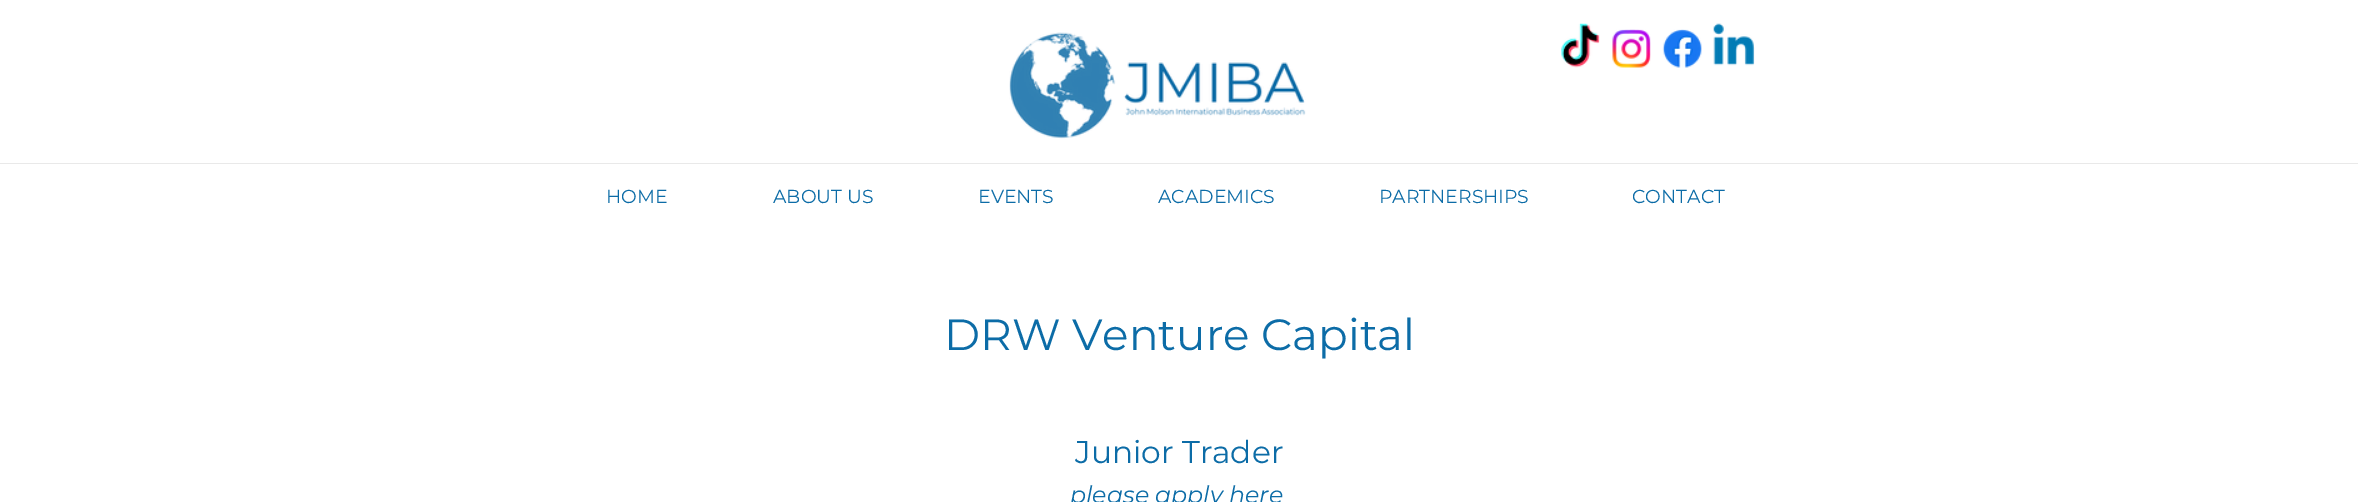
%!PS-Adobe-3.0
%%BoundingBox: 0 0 2358 502
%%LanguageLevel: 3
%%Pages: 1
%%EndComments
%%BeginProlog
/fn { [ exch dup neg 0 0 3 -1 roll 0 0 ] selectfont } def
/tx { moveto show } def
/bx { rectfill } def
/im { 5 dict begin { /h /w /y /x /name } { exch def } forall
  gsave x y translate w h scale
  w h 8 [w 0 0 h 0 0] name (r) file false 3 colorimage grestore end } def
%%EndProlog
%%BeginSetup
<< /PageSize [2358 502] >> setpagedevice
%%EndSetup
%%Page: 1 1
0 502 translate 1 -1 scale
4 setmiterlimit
1 setgray
0 0 2358 502 bx
(image0.raw) 1009 32 297 107 im
(image1.raw) 1561 23 39 45 im
(image2.raw) 1612 29 39 39 im
(image3.raw) 1662 29 40 39 im
(image4.raw) 1713 23 42 43 im
0.914 setgray
0 163 2358 1 bx
/Montserrat-Regular 18.75 fn
0.047 0.424 0.655 setrgbcolor
(HOME) 606 203 tx
(ABOUT US) 773 203 tx
(EVENTS) 978 203 tx
(ACADEMICS) 1158 203 tx
(PARTNERSHIPS) 1379 203 tx
(CONTACT) 1632 203 tx
/Montserrat-Regular 43.75 fn
(DRW Venture Capital) 944 350 tx
/Montserrat-Regular 31.25 fn
(Junior Trader) 1075 463 tx
/Montserrat-Italic 23.75 fn
(please apply here) 1070 503 tx
showpage
%%EOF
